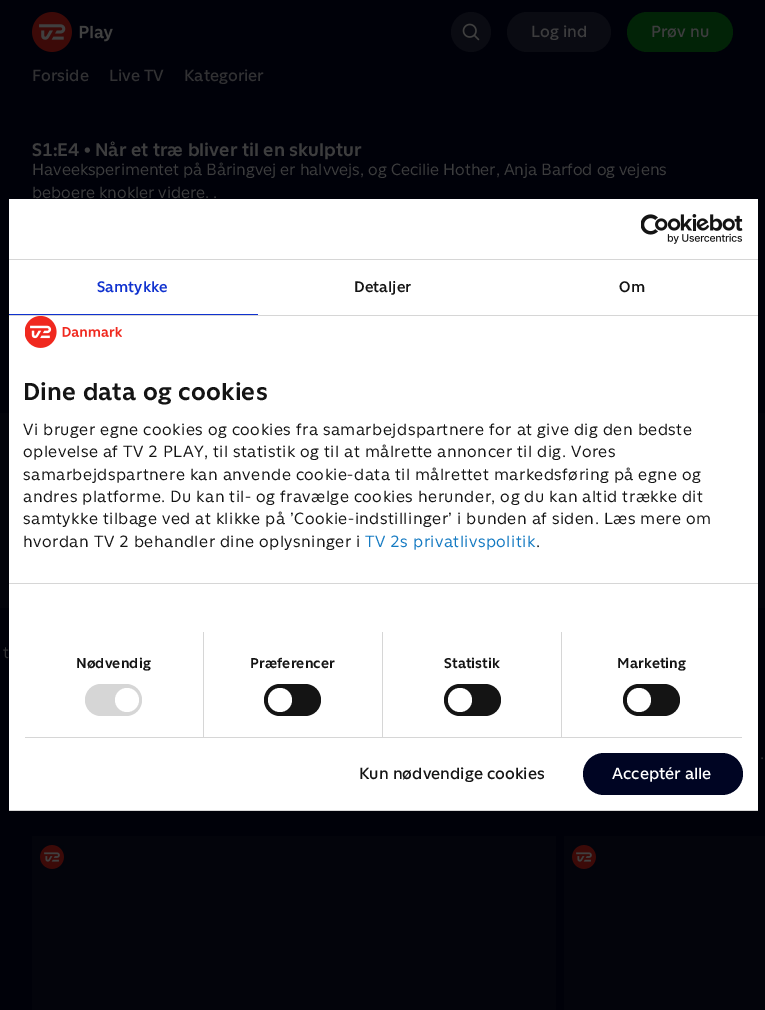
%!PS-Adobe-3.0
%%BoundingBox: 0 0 765 1010
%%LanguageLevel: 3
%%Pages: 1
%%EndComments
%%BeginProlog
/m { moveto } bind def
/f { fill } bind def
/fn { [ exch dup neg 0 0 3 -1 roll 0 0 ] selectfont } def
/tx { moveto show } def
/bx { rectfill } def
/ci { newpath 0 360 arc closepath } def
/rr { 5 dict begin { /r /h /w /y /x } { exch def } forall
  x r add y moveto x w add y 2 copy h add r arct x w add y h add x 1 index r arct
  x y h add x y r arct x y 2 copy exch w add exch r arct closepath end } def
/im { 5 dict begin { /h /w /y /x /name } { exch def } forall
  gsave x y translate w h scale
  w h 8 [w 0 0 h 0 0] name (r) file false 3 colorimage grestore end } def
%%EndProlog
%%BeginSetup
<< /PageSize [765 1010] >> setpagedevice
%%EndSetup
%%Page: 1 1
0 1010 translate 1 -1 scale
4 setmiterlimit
0 0.004 0.035 setrgbcolor
0 0 765 1010 bx
(image0.raw) 32 12 81 40 im
0.039 0.043 0.071 setrgbcolor
471 32 20 ci f
(image1.raw) 462 23 18 18 im
507 12 104 40 20 rr f
/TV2-Medium 16 fn
0.239 0.239 0.243 setrgbcolor
(Log ind) 531 37 tx
0.008 0.137 0.027 setrgbcolor
627 12 106 40 20 rr f
0.239 0.239 0.243 setrgbcolor
(Prøv nu) 651 37 tx
0.192 0.192 0.2 setrgbcolor
(Forside) 32 81 tx
(Live TV) 109 81 tx
(Kategorier) 184 81 tx
/TV2-Bold 18 fn
0.239 0.239 0.243 setrgbcolor
(S1:E4 • Når et træ bliver til en skulptur) 32 156 tx
/TV2-Regular 16 fn
(Haveeksperimentet på Båringvej er halvvejs, og Cecilie Hother, Anja Barfod og vejens) 32 175 tx
(beboere knokler videre. .) 32 198 tx
0.012 0.016 0.043 setrgbcolor
0 413 9 195 bx
0.192 0.192 0.2 setrgbcolor
(t) 3 658 tx
0.012 0.016 0.043 setrgbcolor
758 413 7 195 bx
0.192 0.192 0.2 setrgbcolor
(.) 760 759 tx
0.012 0.016 0.043 setrgbcolor
32 836 524 174 bx
(image2.raw) 40 845 24 24 im
564 836 201 174 bx
(image2.raw) 572 845 24 24 im
1 setgray
9 199 749 611 bx
0.839 setgray
9 259 749 1 bx
(image3.raw) 641 214 102 30 im
9 315 749 1 bx
0.063 0.196 0.812 setrgbcolor
9 314 249 1 bx
/TV2-SemiBold 15 fn
97 292 m 0.1 0 (Samtykke) ashow
0.078 setgray
354 292 m 0.1 0 (Detaljer) ashow
619 292 m 0.1 0 (Om) ashow
(image4.raw) 25 316 97 32 im
0.839 setgray
9 583 749 1 bx
/TV2-Bold 24 fn
0.078 setgray
23 400 m 0.25 0 (Dine data og cookies) ashow
/TV2-Regular 16 fn
23 435 m 0.5 0 (Vi bruger egne cookies og cookies fra samarbejdspartnere for at give dig den bedste) ashow
23 457 m 0.5 0 (oplevelse af TV 2 PLAY, til statistik og til at målrette annoncer til dig. Vores) ashow
23 480 m 0.5 0 (samarbejdspartnere kan anvende cookie-data til målrettet markedsføring på egne og) ashow
23 502 m 0.5 0 (andres platforme. Du kan til- og fravælge cookies herunder, og du kan altid trække dit) ashow
23 524 m 0.5 0 (samtykke tilbage ved at klikke på ’Cookie-indstillinger’ i bunden af siden. Læs mere om) ashow
23 547 m 0.5 0 (hvordan TV 2 behandler dine oplysninger i) ashow
0.078 0.478 0.761 setrgbcolor
365 547 m 0.5 0 (TV 2s privatlivspolitik) ashow
0.078 setgray
536 547 m 0.5 0 (.) ashow
0.839 setgray
25 737 717 1 bx
203 632 1 105 bx
/TV2-Bold 14 fn
0.078 setgray
76 668 m 0.1 0 (Nødvendig) ashow
0.839 setgray
85 684 57 32 16 rr f
1 setgray
127 700 12 ci f
0.839 setgray
382 632 1 105 bx
0.078 setgray
250 668 m 0.1 0 (Præferencer) ashow
264 684 57 32 16 rr f
1 setgray
280 700 12 ci f
0.839 setgray
561 632 1 105 bx
0.078 setgray
444 668 m 0.1 0 (Statistik) ashow
444 684 57 32 16 rr f
1 setgray
460 700 12 ci f
0.078 setgray
617 668 m 0.1 0 (Marketing) ashow
623 684 57 32 16 rr f
1 setgray
639 700 12 ci f
0.839 setgray
9 810 749 1 bx
/TV2-Medium 16 fn
0.078 setgray
(Kun nødvendige cookies) 359 779 tx
0 0.02 0.137 setrgbcolor
583 753 160 42 21 rr f
1 setgray
(Acceptér alle) 612 779 tx
showpage
%%EOF
